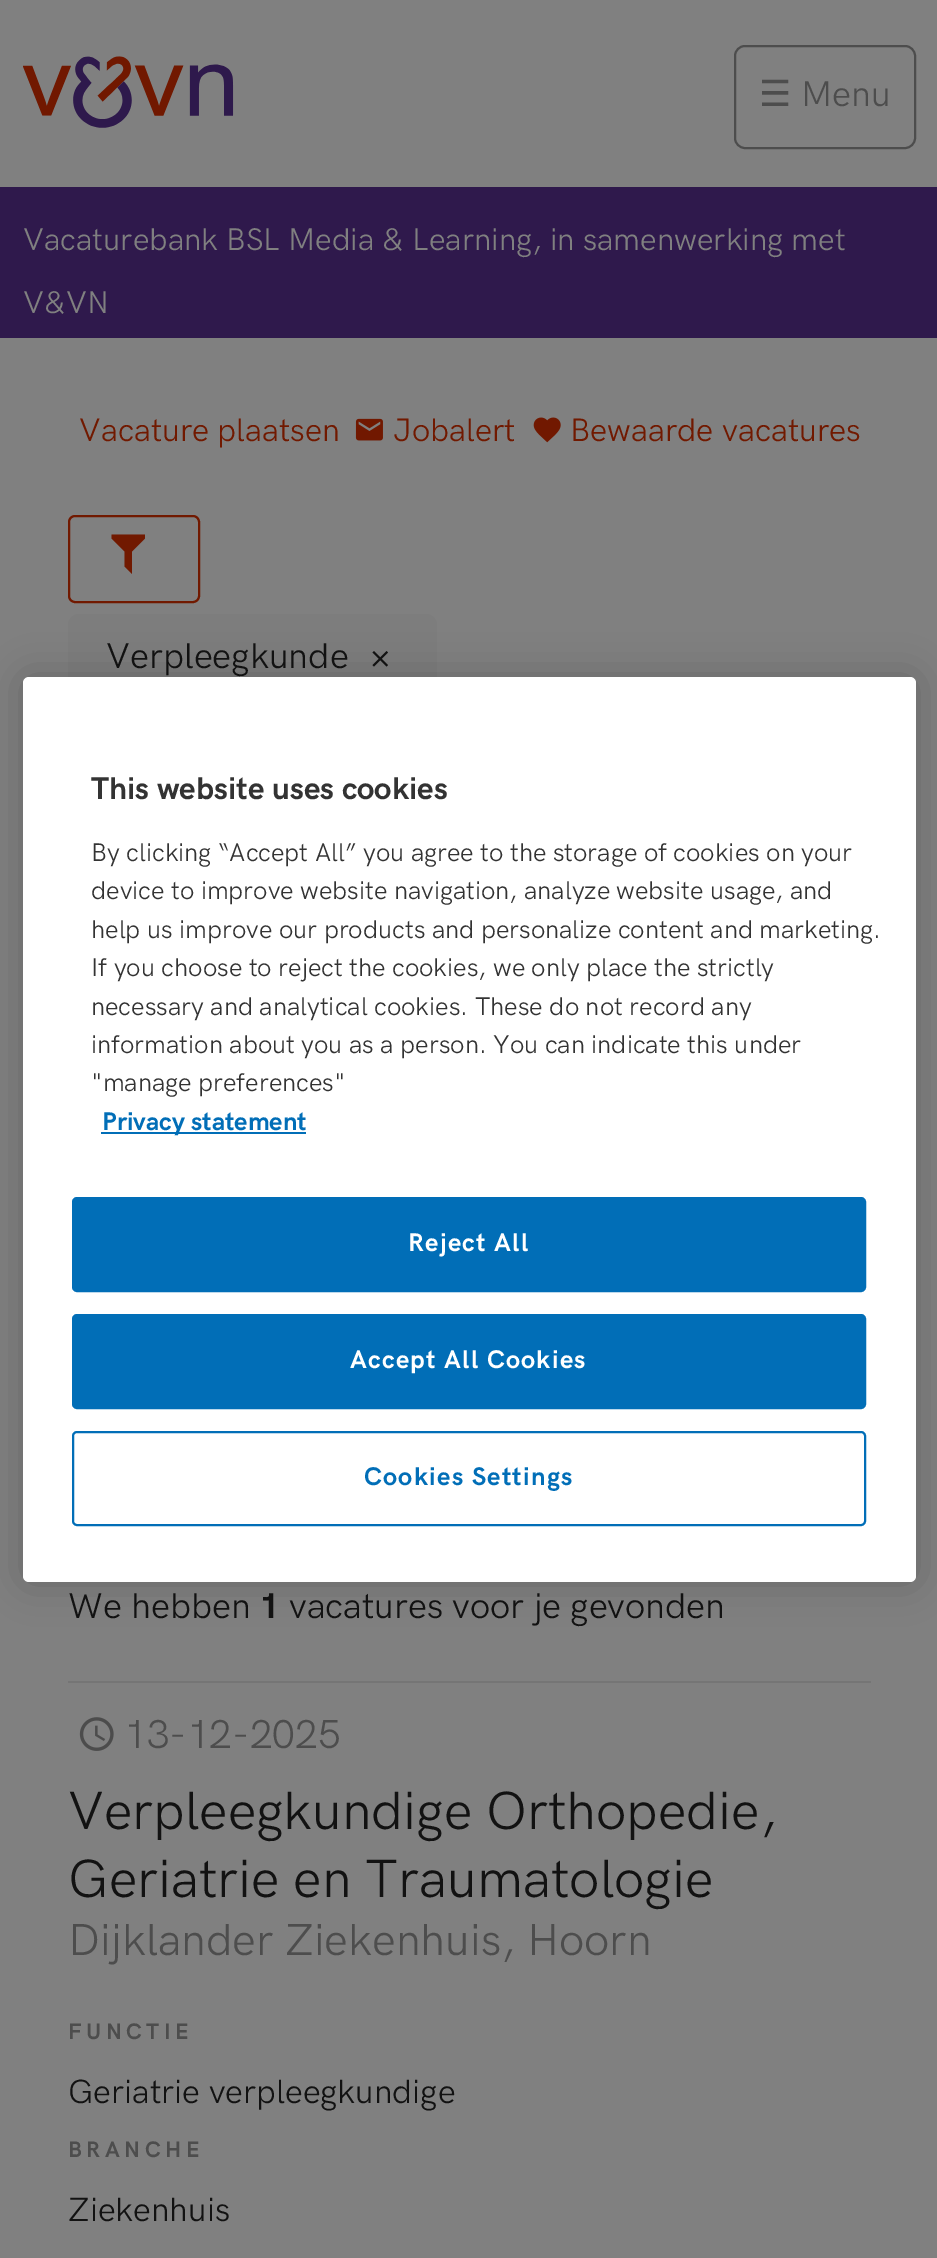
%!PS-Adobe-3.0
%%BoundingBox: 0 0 937 2258
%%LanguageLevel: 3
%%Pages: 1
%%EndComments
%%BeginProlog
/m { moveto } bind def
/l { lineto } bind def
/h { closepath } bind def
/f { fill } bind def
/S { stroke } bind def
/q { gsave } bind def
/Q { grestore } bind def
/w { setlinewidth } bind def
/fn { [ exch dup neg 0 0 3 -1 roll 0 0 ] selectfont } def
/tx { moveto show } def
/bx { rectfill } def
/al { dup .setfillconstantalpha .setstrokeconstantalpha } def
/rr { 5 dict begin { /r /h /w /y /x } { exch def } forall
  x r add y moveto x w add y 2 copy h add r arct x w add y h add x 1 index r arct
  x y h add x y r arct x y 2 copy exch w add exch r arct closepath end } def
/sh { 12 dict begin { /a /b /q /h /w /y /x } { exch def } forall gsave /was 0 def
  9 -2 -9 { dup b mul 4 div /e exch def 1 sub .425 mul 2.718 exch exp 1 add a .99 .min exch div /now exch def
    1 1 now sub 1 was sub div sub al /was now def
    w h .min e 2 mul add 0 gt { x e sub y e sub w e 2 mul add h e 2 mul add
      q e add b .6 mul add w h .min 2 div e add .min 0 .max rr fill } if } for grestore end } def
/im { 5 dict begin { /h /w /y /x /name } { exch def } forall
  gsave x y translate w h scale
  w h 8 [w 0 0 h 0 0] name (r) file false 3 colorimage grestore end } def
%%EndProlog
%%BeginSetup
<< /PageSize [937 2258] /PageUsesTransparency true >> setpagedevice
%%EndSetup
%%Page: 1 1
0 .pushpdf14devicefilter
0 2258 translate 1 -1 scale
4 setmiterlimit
0.502 setgray
0 0 937 2258 bx
(image0.raw) 23 56 211 72 im
0.302 setgray
2 w
735 46 180 102 10 rr S
/DejaVuSans-Regular 36 fn
(☰) 759 106 tx
/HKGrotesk-Regular 36 fn
(Menu) 801 106 tx
0.184 0.098 0.298 setrgbcolor
0 187 937 151 bx
/HKGrotesk-Regular 31.5 fn
0.502 setgray
(Vacaturebank BSL Media & Learning, in samenwerking met) 23 250 tx
(V&VN) 23 313 tx
/HKGrotesk-Regular 32.5 fn
0.443 0.098 0 setrgbcolor
(Vacature plaatsen) 79 441 tx
(image1.raw) 355 418 28 23 im
(Jobalert) 393 441 tx
(image2.raw) 533 417 28 26 im
(Bewaarde vacatures) 570 441 tx
69 516 130 86 6 rr S
111.5 534.5 m 145 534.5 l 145 538.5 l 132 551.5 l 132 574 l 124.5 566.5 l 124.5 551.5 l 111.5 538.5 l h f
0.49 setgray
68 614 369 90 11 rr f
/HKGrotesk-Regular 36 fn
0.071 setgray
(Verpleegkunde) 106 668 tx
(image3.raw) 372 651 16 16 im
(We hebben) 68 1618 tx
/HKGrotesk-Bold 36 fn
(1) 259 1618 tx
/HKGrotesk-Regular 36 fn
(vacatures voor je gevonden) 289 1618 tx
0.459 setgray
68 1681 803 2 bx
(image4.raw) 79 1717 35 34 im
/HKGrotesk-Regular 40.5 fn
0.302 setgray
(13-12-2025) 124 1748 tx
/HKGrotesk-Regular 54 fn
0.071 setgray
(Verpleegkundige Orthopedie,) 68 1829 tx
(Geriatrie en Traumatologie) 68 1897 tx
/HKGrotesk-Regular 45 fn
0.302 setgray
(Dijklander Ziekenhuis, Hoorn) 68 1955 tx
/HKGrotesk-Bold 22.5 fn
68 2039 m 4.5 0 (FUNCTIE) ashow
/HKGrotesk-Regular 33.75 fn
0.071 setgray
(Geriatrie verpleegkundige) 68 2103 tx
/HKGrotesk-Bold 22.5 fn
0.302 setgray
68 2157 m 4.5 0 (BRANCHE) ashow
/HKGrotesk-Regular 33.75 fn
0.071 setgray
(Ziekenhuis) 68 2221 tx
0 setgray
23 677 893 905 6 20 0.2 sh
1 setgray
23 677 893 905 6 rr f
/HKGrotesk-Bold 31.5 fn
0.2 setgray
(This website uses cookies) 91 799 tx
/HKGrotesk-Regular 25.6 fn
(By clicking “Accept All” you agree to the storage of cookies on your) 91 861 tx
(device to improve website navigation, analyze website usage, and) 91 899 tx
(help us improve our products and personalize content and marketing.) 91 938 tx
(If you choose to reject the cookies, we only place the strictly) 91 976 tx
(necessary and analytical cookies. These do not record any) 91 1015 tx
(information about you as a person. You can indicate this under) 91 1053 tx
("manage preferences") 91 1091 tx
0.004 0.431 0.718 setrgbcolor
101 1132 205 2 bx
/HKGrotesk-Bold 25.6 fn
(Privacy statement) 102 1130 tx
73 1198 792 93 4 rr q f Q
S
1 setgray
408 1251 m 1.25 0 (Reject All) ashow
0.004 0.431 0.718 setrgbcolor
73 1315 792 93 4 rr q f Q
S
1 setgray
350 1368 m 1.25 0 (Accept All Cookies) ashow
0.004 0.431 0.718 setrgbcolor
73 1432 792 93 4 rr S
364 1485 m 1.25 0 (Cookies Settings) ashow
.poppdf14devicefilter showpage
%%EOF
